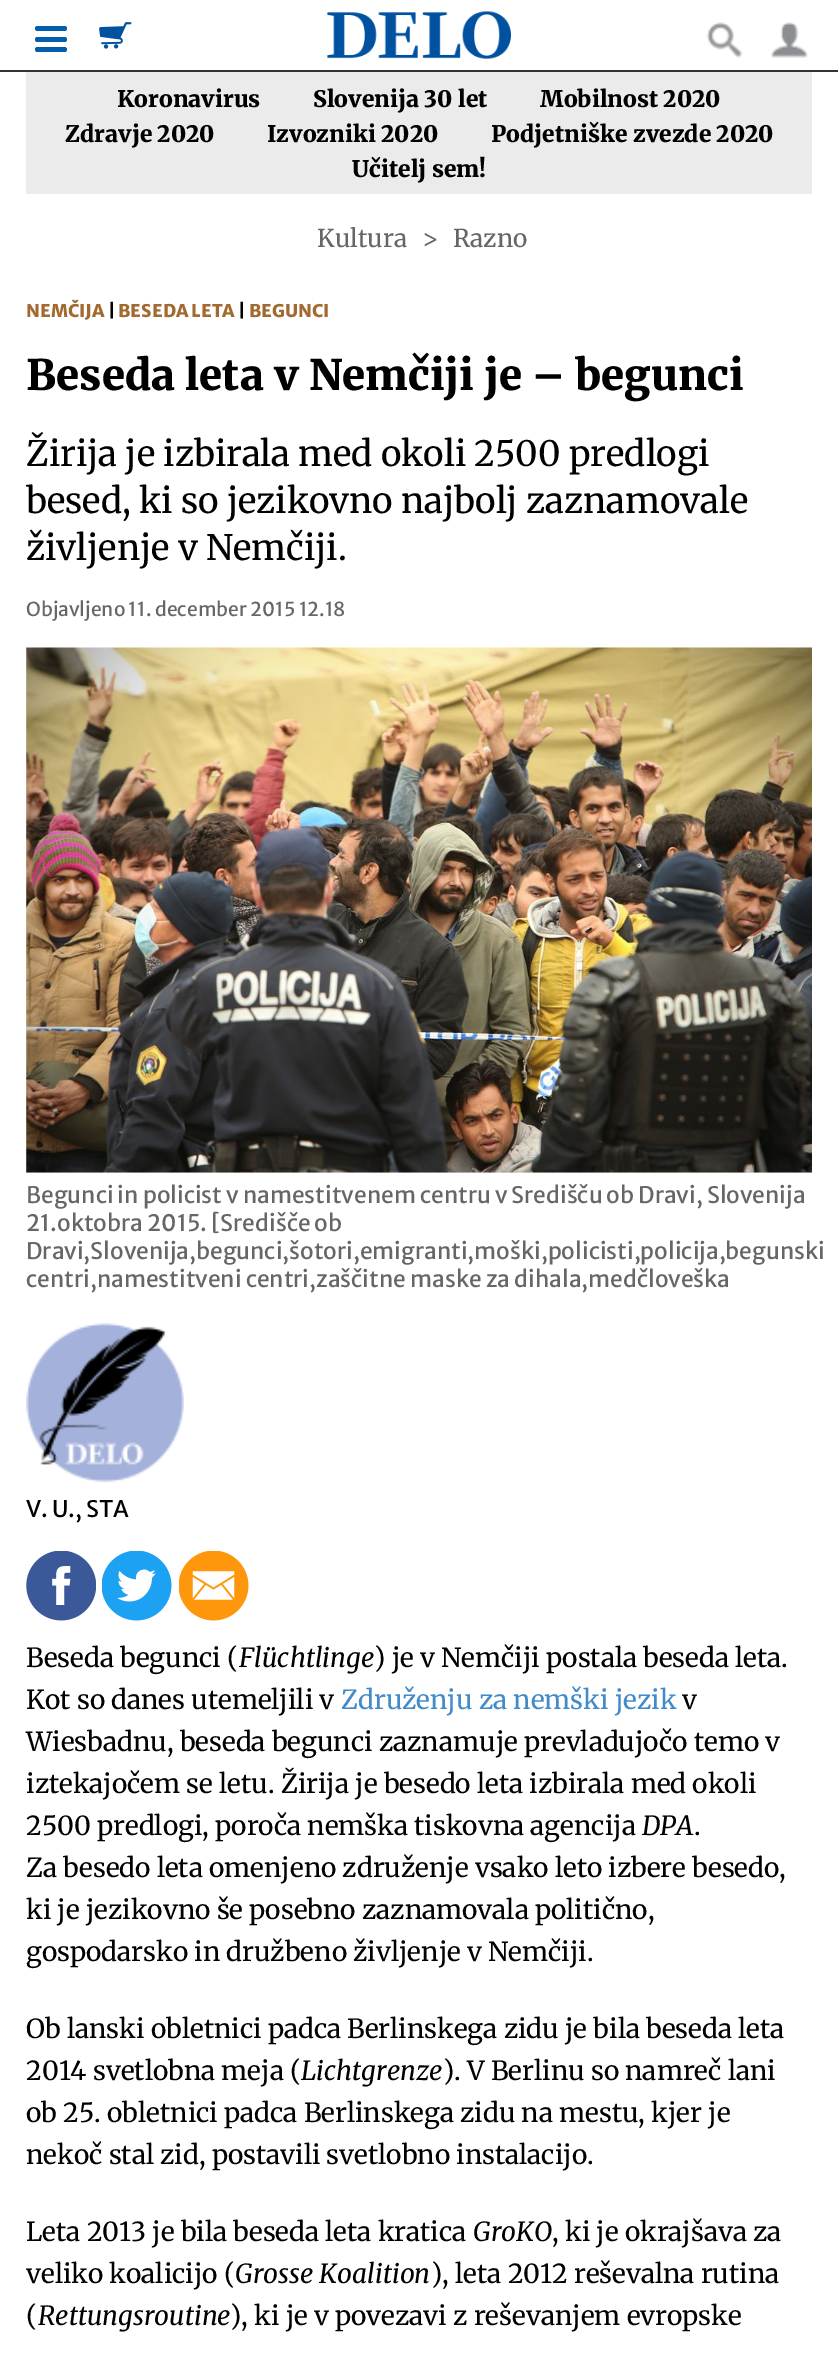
%!PS-Adobe-3.0
%%BoundingBox: 0 0 838 2356
%%LanguageLevel: 3
%%Pages: 1
%%EndComments
%%BeginProlog
/f { fill } bind def
/fn { [ exch dup neg 0 0 3 -1 roll 0 0 ] selectfont } def
/tx { moveto show } def
/bx { rectfill } def
/rr { 5 dict begin { /r /h /w /y /x } { exch def } forall
  x r add y moveto x w add y 2 copy h add r arct x w add y h add x 1 index r arct
  x y h add x y r arct x y 2 copy exch w add exch r arct closepath end } def
/im { 5 dict begin { /h /w /y /x /name } { exch def } forall
  gsave x y translate w h scale
  w h 8 [w 0 0 h 0 0] name (r) file false 3 colorimage grestore end } def
%%EndProlog
%%BeginSetup
<< /PageSize [838 2356] >> setpagedevice
%%EndSetup
%%Page: 1 1
0 2356 translate 1 -1 scale
4 setmiterlimit
1 setgray
0 0 838 2356 bx
0.2 setgray
0 70 838 2 bx
0 0.369 0.678 setrgbcolor
35 26 32 5 2.5 rr f
35 37 32 5 2.5 rr f
35 47 32 5 2.5 rr f
(image0.raw) 99 22 33 27 im
(image1.raw) 327 11 184 48 im
(image2.raw) 706 22 37 36 im
(image3.raw) 771 22 37 36 im
0.922 setgray
26 72 786 122 bx
/Merriweather-Black 22.75 fn
0 setgray
(Koronavirus) 117 107 tx
(Slovenija 30 let) 313 107 tx
(Mobilnost 2020) 540 107 tx
(Zdravje 2020) 65 142 tx
(Izvozniki 2020) 267 142 tx
(Podjetniške zvezde 2020) 491 142 tx
(Učitelj sem!) 352 177 tx
/Merriweather-Regular 24.5 fn
0.4 setgray
(Kultura) 317 247 tx
(>) 422 247 tx
(Razno) 453 247 tx
/MerriweatherSans-ExtraBold 17.5 fn
0.635 0.412 0.188 setrgbcolor
(NEMČIJA) 26 317 tx
0 setgray
(|) 108 317 tx
0.635 0.412 0.188 setrgbcolor
(BESEDA LETA) 118 317 tx
0 setgray
(|) 238 317 tx
0.635 0.412 0.188 setrgbcolor
(BEGUNCI) 249 317 tx
/Merriweather-Black 42 fn
0 setgray
(Beseda leta v Nemčiji je – begunci) 26 390 tx
/Merriweather-Regular 35 fn
(Žirija je izbirala med okoli 2500 predlogi) 26 466 tx
(besed, ki so jezikovno najbolj zaznamovale) 26 513 tx
(življenje v Nemčiji.) 26 560 tx
/MerriweatherSans-Regular 19.25 fn
0.4 setgray
(Objavljeno 11. december 2015 12.18) 26 616 tx
0.922 setgray
26 648 786 525 bx
(image4.raw) 26 647 786 526 im
/MerriweatherSans-Regular 22.75 fn
0.4 setgray
(Begunci in policist v namestitvenem centru v Središču ob Dravi, Slovenija) 26 1203 tx
(21.oktobra 2015. [Središče ob) 26 1231 tx
(Dravi,Slovenija,begunci,šotori,emigranti,moški,policisti,policija,begunski) 26 1259 tx
(centri,namestitveni centri,zaščitne maske za dihala,medčloveška) 26 1287 tx
(image5.raw) 26 1323 158 160 im
0 setgray
(V. U., STA) 26 1517 tx
(image6.raw) 26 1551 70 70 im
(image7.raw) 102 1551 70 70 im
(image8.raw) 179 1551 70 70 im
/Merriweather-Regular 26.25 fn
(Beseda begunci \() 26 1667 tx
/Merriweather-Italic 26.25 fn
(Flüchtlinge) 239 1667 tx
/Merriweather-Regular 26.25 fn
(\) je v Nemčiji postala beseda leta.) 374 1667 tx
(Kot so danes utemeljili v) 26 1709 tx
0.259 0.545 0.792 setrgbcolor
(Združenju za nemški jezik) 341 1709 tx
0 setgray
(v) 682 1709 tx
(Wiesbadnu, beseda begunci zaznamuje prevladujočo temo v) 26 1751 tx
(iztekajočem se letu. Žirija je besedo leta izbirala med okoli) 26 1793 tx
(2500 predlogi, poroča nemška tiskovna agencija) 26 1835 tx
/Merriweather-Italic 26.25 fn
(DPA) 642 1835 tx
/Merriweather-Regular 26.25 fn
(.) 694 1835 tx
(Za besedo leta omenjeno združenje vsako leto izbere besedo,) 26 1877 tx
(ki je jezikovno še posebno zaznamovala politično,) 26 1919 tx
(gospodarsko in družbeno življenje v Nemčiji.) 26 1961 tx
(Ob lanski obletnici padca Berlinskega zidu je bila beseda leta) 26 2038 tx
(2014 svetlobna meja \() 26 2080 tx
/Merriweather-Italic 26.25 fn
(Lichtgrenze) 301 2080 tx
/Merriweather-Regular 26.25 fn
(\). V Berlinu so namreč lani) 443 2080 tx
(ob 25. obletnici padca Berlinskega zidu na mestu, kjer je) 26 2122 tx
(nekoč stal zid, postavili svetlobno instalacijo.) 26 2164 tx
(Leta 2013 je bila beseda leta kratica) 26 2241 tx
/Merriweather-Italic 26.25 fn
(GroKO) 473 2241 tx
/Merriweather-Regular 26.25 fn
(, ki je okrajšava za) 552 2241 tx
(veliko koalicijo \() 26 2283 tx
/Merriweather-Italic 26.25 fn
(Grosse Koalition) 235 2283 tx
/Merriweather-Regular 26.25 fn
(\), leta 2012 reševalna rutina) 431 2283 tx
(\() 26 2325 tx
/Merriweather-Italic 26.25 fn
(Rettungsroutine) 38 2325 tx
/Merriweather-Regular 26.25 fn
(\), ki je v povezavi z reševanjem evropske) 230 2325 tx
showpage
%%EOF
